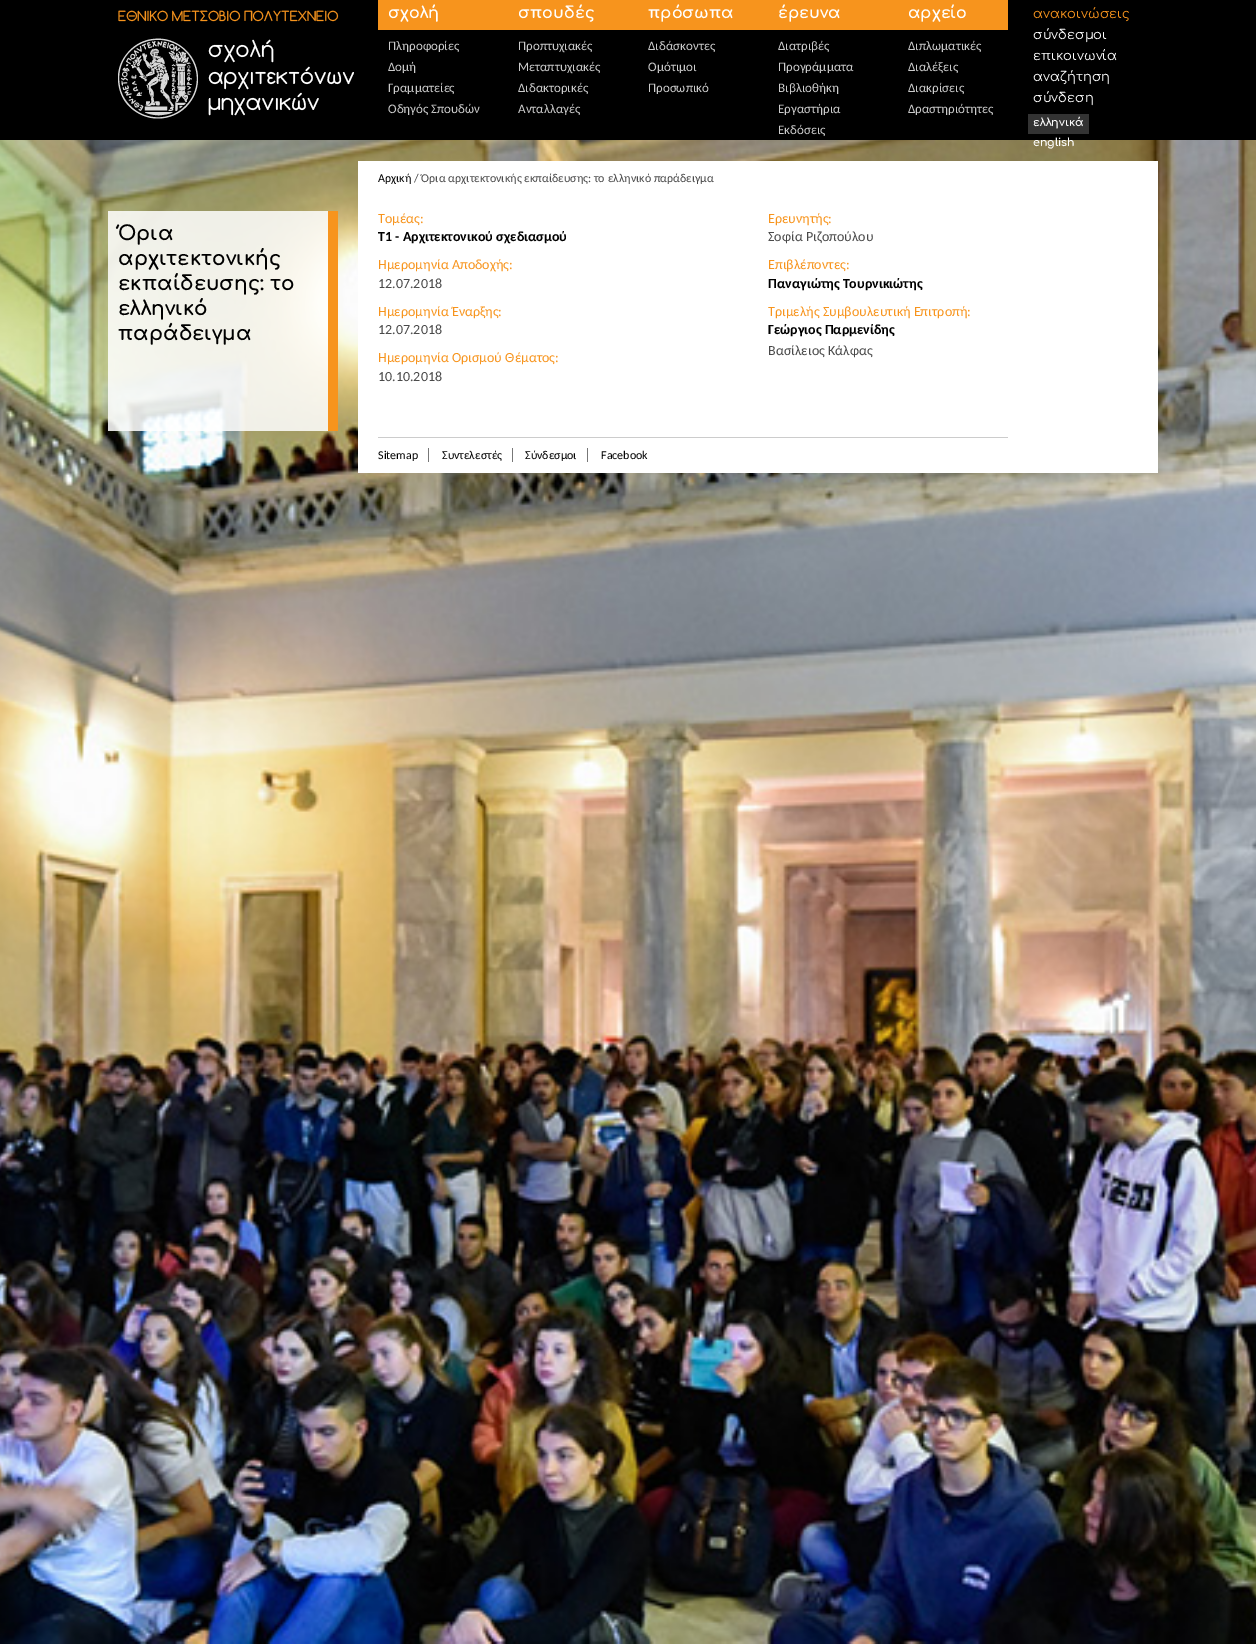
%!PS-Adobe-3.0
%%BoundingBox: 0 0 1256 1644
%%LanguageLevel: 3
%%Pages: 1
%%EndComments
%%BeginProlog
/fn { [ exch dup neg 0 0 3 -1 roll 0 0 ] selectfont } def
/tx { moveto show } def
/bx { rectfill } def
/al { dup .setfillconstantalpha .setstrokeconstantalpha } def
/im { 5 dict begin { /h /w /y /x /name } { exch def } forall
  gsave x y translate w h scale
  w h 8 [w 0 0 h 0 0] name (r) file false 3 colorimage grestore end } def
%%EndProlog
%%BeginSetup
<< /PageSize [1256 1644] /PageUsesTransparency true >> setpagedevice
%%EndSetup
%%Page: 1 1
0 .pushpdf14devicefilter
0 1644 translate 1 -1 scale
4 setmiterlimit
1 setgray
0 0 1256 1644 bx
0 setgray
0 0 1256 140 bx
(image0.raw) 118 10 236 109 im
0.969 0.58 0.114 setrgbcolor
378 0 630 30 bx
/Comfortaa-Bold 16 fn
1 setgray
(σχολή) 388 18 tx
/Carlito-Regular 13 fn
0.8 setgray
(Πληροφορίες) 388 50 tx
(Δομή) 388 71 tx
(Γραμματείες) 388 92 tx
(Οδηγός Σπουδών) 388 113 tx
/Comfortaa-Bold 16 fn
1 setgray
(σπουδές) 518 18 tx
/Carlito-Regular 13 fn
0.8 setgray
(Προπτυχιακές) 518 50 tx
(Μεταπτυχιακές) 518 71 tx
(Διδακτορικές) 518 92 tx
(Ανταλλαγές) 518 113 tx
/Comfortaa-Bold 16 fn
1 setgray
(πρόσωπα) 648 18 tx
/Carlito-Regular 13 fn
0.8 setgray
(Διδάσκοντες) 648 50 tx
(Ομότιμοι) 648 71 tx
(Προσωπικό) 648 92 tx
/Comfortaa-Bold 16 fn
1 setgray
(έρευνα) 778 18 tx
/Carlito-Regular 13 fn
0.8 setgray
(Διατριβές) 778 50 tx
(Προγράμματα) 778 71 tx
(Βιβλιοθήκη) 778 92 tx
(Εργαστήρια) 778 113 tx
(Εκδόσεις) 778 134 tx
/Comfortaa-Bold 16 fn
1 setgray
(αρχείο) 908 18 tx
/Carlito-Regular 13 fn
0.8 setgray
(Διπλωματικές) 908 50 tx
(Διαλέξεις) 908 71 tx
(Διακρίσεις) 908 92 tx
(Δραστηριότητες) 908 113 tx
/Comfortaa-Regular 13 fn
0.969 0.58 0.114 setrgbcolor
(ανακοινώσεις) 1033 18 tx
1 setgray
(σύνδεσμοι) 1033 39 tx
(επικοινωνία) 1033 60 tx
(αναζήτηση) 1033 81 tx
(σύνδεση) 1033 102 tx
0.2 setgray
1028 114 61 20 bx
/Comfortaa-Bold 11 fn
1 setgray
(ελληνικά) 1033 126 tx
(image1.raw) 0 140 1256 1504 im
(english) 1033 146 tx
0.85 al
108 211 220 220 bx
1 al
0.969 0.58 0.114 setrgbcolor
328 211 10 220 bx
/Comfortaa-Bold 20 fn
0 setgray
(Όρια) 118 240 tx
(αρχιτεκτονικής) 118 265 tx
(εκπαίδευσης: το) 118 290 tx
(ελληνικό) 118 315 tx
(παράδειγμα) 118 340 tx
1 setgray
358 161 800 312 bx
/Carlito-Regular 12 fn
0 setgray
(Αρχική) 378 182 tx
0.286 setgray
(/ Όρια αρχιτεκτονικής εκπαίδευσης: το ελληνικό παράδειγμα) 414 182 tx
/Carlito-Regular 14 fn
0.969 0.58 0.114 setrgbcolor
(Τομέας:) 378 223 tx
/Carlito-Bold 14 fn
0 setgray
(Τ1 - Αρχιτεκτονικού σχεδιασμού) 378 241 tx
/Carlito-Regular 14 fn
0.969 0.58 0.114 setrgbcolor
(Ημερομηνία Αποδοχής:) 378 269 tx
0.286 setgray
(12.07.2018) 378 288 tx
0.969 0.58 0.114 setrgbcolor
(Ημερομηνία Έναρξης:) 378 316 tx
0.286 setgray
(12.07.2018) 378 334 tx
0.969 0.58 0.114 setrgbcolor
(Ημερομηνία Ορισμού Θέματος:) 378 362 tx
0.286 setgray
(10.10.2018) 378 381 tx
0.969 0.58 0.114 setrgbcolor
(Ερευνητής:) 768 223 tx
0.286 setgray
(Σοφία Ριζοπούλου) 768 241 tx
0.969 0.58 0.114 setrgbcolor
(Επιβλέποντες:) 768 269 tx
/Carlito-Bold 14 fn
0 setgray
(Παναγιώτης Τουρνικιώτης) 768 288 tx
/Carlito-Regular 14 fn
0.969 0.58 0.114 setrgbcolor
(Τριμελής Συμβουλευτική Επιτροπή:) 768 316 tx
/Carlito-Bold 14 fn
0 setgray
(Γεώργιος Παρμενίδης) 768 334 tx
/Carlito-Regular 14 fn
0.286 setgray
(Βασίλειος Κάλφας) 768 355 tx
0.8 setgray
378 437 630 1 bx
/Carlito-Regular 12 fn
0 setgray
(Sitemap) 378 459 tx
0.467 setgray
428 448 1 14 bx
0 setgray
(Συντελεστές) 442 459 tx
0.467 setgray
512 448 1 14 bx
0 setgray
(Σύνδεσμοι) 525 459 tx
0.467 setgray
587 448 1 14 bx
0 setgray
(Facebook) 601 459 tx
.poppdf14devicefilter showpage
%%EOF
